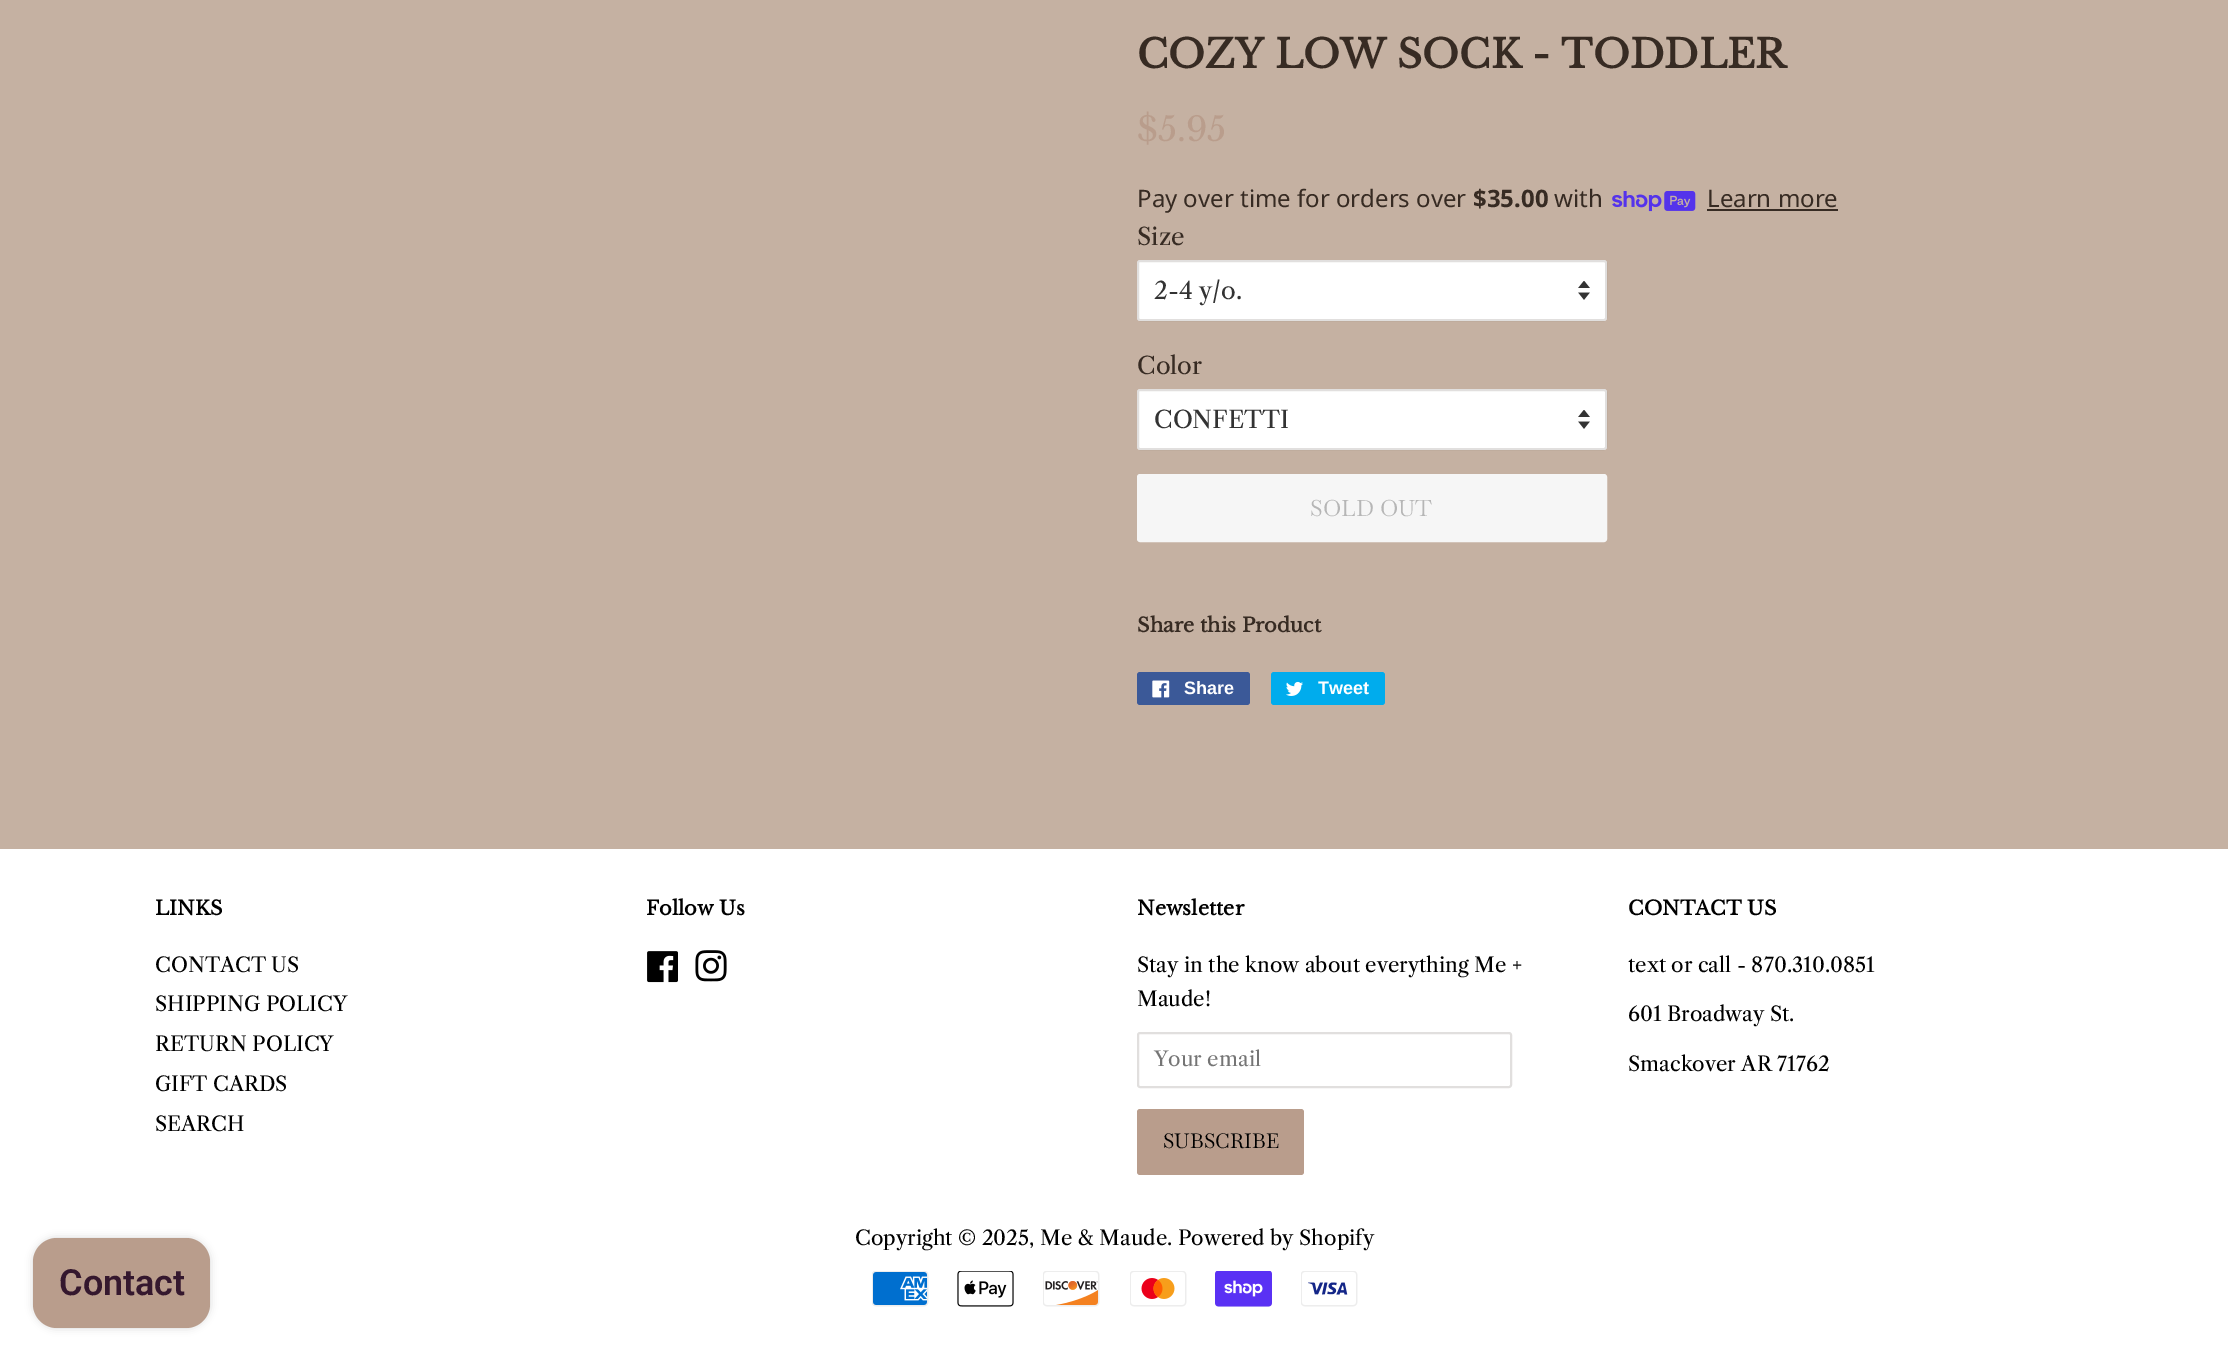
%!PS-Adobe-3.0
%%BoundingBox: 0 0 2228 1359
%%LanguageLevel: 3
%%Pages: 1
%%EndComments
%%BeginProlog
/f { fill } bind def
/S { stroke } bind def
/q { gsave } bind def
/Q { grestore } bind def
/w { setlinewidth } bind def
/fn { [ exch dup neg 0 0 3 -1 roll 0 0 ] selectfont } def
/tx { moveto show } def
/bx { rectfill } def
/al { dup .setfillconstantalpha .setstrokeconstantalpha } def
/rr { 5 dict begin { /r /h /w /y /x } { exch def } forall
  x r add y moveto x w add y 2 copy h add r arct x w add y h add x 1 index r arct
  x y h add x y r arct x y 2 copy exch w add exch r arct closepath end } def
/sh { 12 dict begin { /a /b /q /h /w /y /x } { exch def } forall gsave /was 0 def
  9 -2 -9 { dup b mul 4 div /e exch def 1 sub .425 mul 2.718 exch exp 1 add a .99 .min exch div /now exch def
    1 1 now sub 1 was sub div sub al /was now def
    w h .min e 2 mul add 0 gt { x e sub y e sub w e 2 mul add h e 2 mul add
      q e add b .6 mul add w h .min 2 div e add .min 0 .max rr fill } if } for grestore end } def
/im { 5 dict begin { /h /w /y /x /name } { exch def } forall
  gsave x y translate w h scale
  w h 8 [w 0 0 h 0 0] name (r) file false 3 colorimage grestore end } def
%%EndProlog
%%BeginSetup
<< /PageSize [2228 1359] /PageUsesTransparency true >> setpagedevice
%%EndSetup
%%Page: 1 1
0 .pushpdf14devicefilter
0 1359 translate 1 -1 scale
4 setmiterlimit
0.773 0.694 0.635 setrgbcolor
0 0 2228 1359 bx
/LibreBaskerville-Bold 39 fn
0.216 0.169 0.137 setrgbcolor
(COZY LOW SOCK - TODDLER) 1137 68 tx
/LibreBaskerville-Regular 33.5 fn
0.725 0.616 0.549 setrgbcolor
($5.95) 1137 141 tx
/NotoSans-Regular 24 fn
0.216 0.169 0.137 setrgbcolor
(Pay over time for orders over) 1137 207 tx
/NotoSans-Bold 24 fn
($35.00) 1473 207 tx
/NotoSans-Regular 24 fn
(with) 1554 207 tx
(image0.raw) 1612 191 84 21 im
(Learn more) 1707 207 tx
1707 209 131 2 bx
/LibreCaslonText-Regular 24 fn
(Size) 1137 245 tx
1 setgray
1137 260 470 61 3 rr f
(image1.raw) 1578 281 12 19 im
0.15 al
0.216 0.169 0.137 setrgbcolor
2 w
1138 261 468 59 2 rr S
1 al
0.2 setgray
(2-4 y/o.) 1154 299 tx
0.216 0.169 0.137 setrgbcolor
(Color) 1137 374 tx
1 setgray
1137 389 470 61 3 rr f
(image1.raw) 1578 410 12 19 im
0.15 al
0.216 0.169 0.137 setrgbcolor
1138 390 468 59 2 rr S
1 al
0.2 setgray
(CONFETTI) 1154 428 tx
0.965 setgray
1138 475 468 66 2 rr q f Q
S
/Baskervville-Regular 22.5 fn
0.714 setgray
(SOLD OUT) 1310 516 tx
/LibreBaskerville-Bold 19.5 fn
0.216 0.169 0.137 setrgbcolor
(Share this Product) 1137 632 tx
0.231 0.349 0.596 setrgbcolor
1137 672 113 33 3 rr f
(image2.raw) 1152 680 18 18 im
/LiberationSans-Bold 18 fn
1 setgray
(Share) 1184 694 tx
0 0.675 0.929 setrgbcolor
1271 672 114 33 3 rr f
(image3.raw) 1286 681 17 15 im
1 setgray
(Tweet) 1318 694 tx
0 849 2228 510 bx
/LibreBaskerville-Bold 19.5 fn
0 setgray
(LINKS) 155 915 tx
/LibreCaslonText-Regular 20.4 fn
(CONTACT US) 155 972 tx
(SHIPPING POLICY) 155 1011 tx
(RETURN POLICY) 155 1051 tx
(GIFT CARDS) 155 1091 tx
(SEARCH) 155 1131 tx
/LibreBaskerville-Bold 19.5 fn
(Follow Us) 646 915 tx
(image4.raw) 647 951 31 32 im
(image5.raw) 695 950 32 32 im
(Newsletter) 1137 915 tx
/LibreCaslonText-Regular 20.4 fn
(Stay in the know about everything Me +) 1137 972 tx
(Maude!) 1137 1006 tx
0.882 0.875 0.871 setrgbcolor
1138 1033 373 54 2 rr S
0.459 setgray
(Your email) 1154 1066 tx
0.725 0.616 0.549 setrgbcolor
1137 1109 167 66 3 rr f
/Baskervville-Regular 20.4 fn
0 setgray
(SUBSCRIBE) 1163 1148 tx
/LibreBaskerville-Bold 19.5 fn
(CONTACT US) 1628 915 tx
/LibreCaslonText-Regular 20.4 fn
(text or call - 870.310.0851) 1628 972 tx
(601 Broadway St.) 1628 1021 tx
(Smackover AR 71762) 1628 1071 tx
(Copyright © 2025, Me & Maude. Powered by Shopify) 855 1245 tx
(image6.raw) 872 1271 57 36 im
(image7.raw) 957 1271 57 36 im
(image8.raw) 1043 1271 57 36 im
(image9.raw) 1130 1271 57 36 im
(image10.raw) 1215 1271 57 36 im
(image11.raw) 1301 1271 57 36 im
33 1238 177 90 24 4 0.15 sh
0.725 0.616 0.549 setrgbcolor
33 1238 177 90 24 rr f
/Roboto-SemiBold 36 fn
0.208 0.094 0.18 setrgbcolor
(Contact) 59 1295 tx
.poppdf14devicefilter showpage
%%EOF
